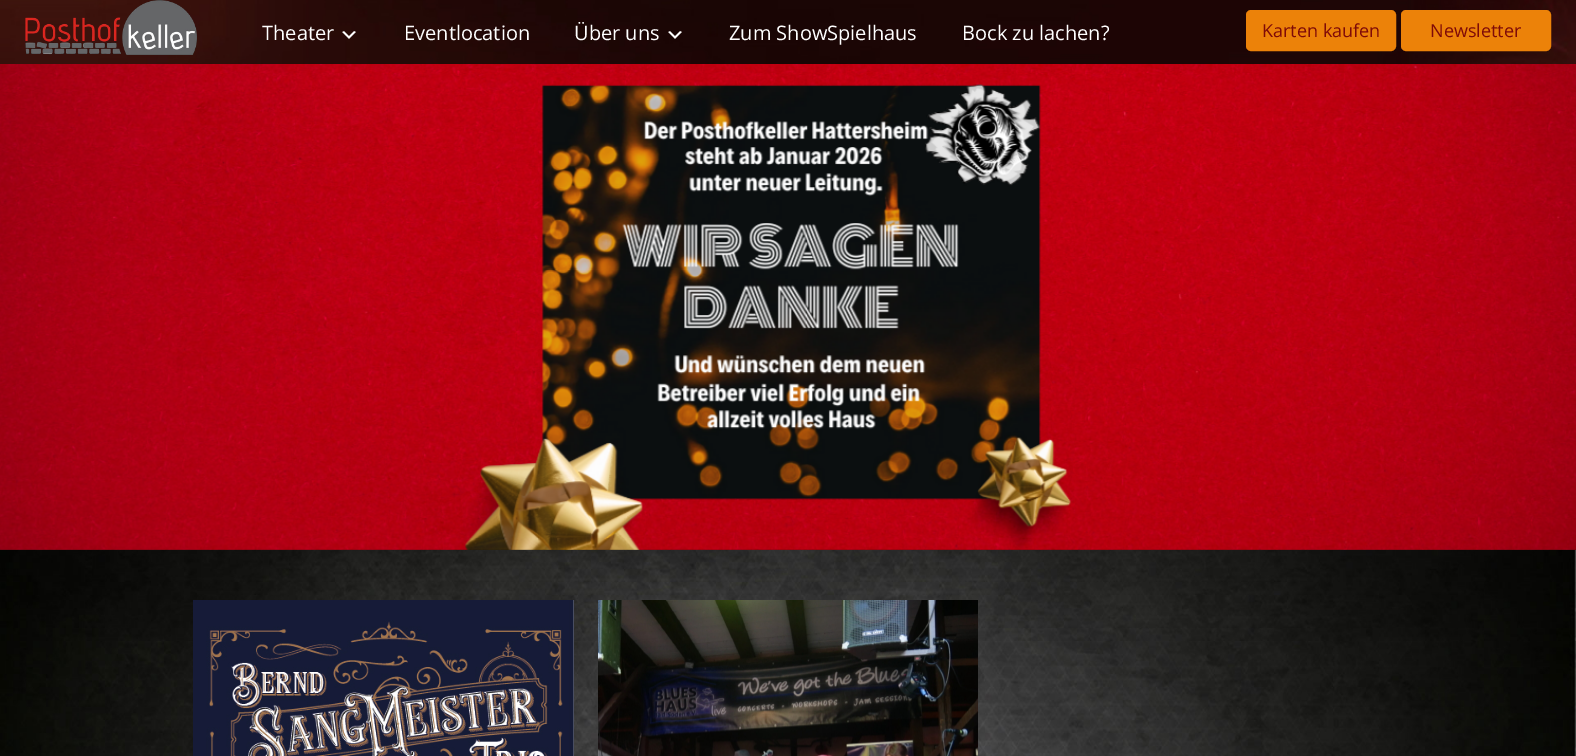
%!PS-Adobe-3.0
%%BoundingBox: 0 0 1576 756
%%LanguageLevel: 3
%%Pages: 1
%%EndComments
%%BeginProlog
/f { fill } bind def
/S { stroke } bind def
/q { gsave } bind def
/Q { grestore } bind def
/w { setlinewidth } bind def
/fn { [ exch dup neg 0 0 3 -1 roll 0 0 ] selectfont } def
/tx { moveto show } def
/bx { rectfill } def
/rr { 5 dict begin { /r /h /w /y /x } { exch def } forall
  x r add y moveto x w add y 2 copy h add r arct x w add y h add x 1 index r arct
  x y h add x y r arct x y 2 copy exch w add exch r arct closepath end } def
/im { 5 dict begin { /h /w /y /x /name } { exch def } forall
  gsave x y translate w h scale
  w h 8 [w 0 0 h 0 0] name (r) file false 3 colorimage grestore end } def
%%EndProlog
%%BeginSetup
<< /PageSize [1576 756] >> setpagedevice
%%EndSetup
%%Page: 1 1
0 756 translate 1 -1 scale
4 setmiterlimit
1 setgray
0 0 1576 756 bx
(image0.raw) 0 0 1576 64 im
(image1.raw) 25 0 172 55 im
/OpenSans-Regular 20 fn
(Theater) 262 40 tx
(image2.raw) 342 31 14 8 im
(Eventlocation) 404 40 tx
(Über uns) 574 40 tx
(image3.raw) 668 31 14 8 im
(Zum ShowSpielhaus) 729 40 tx
(Bock zu lachen?) 962 40 tx
0.925 0.51 0.035 setrgbcolor
1247 11 148 39 4 rr q f Q
2 w
S
/OpenSans-Regular 18 fn
0.498 0.039 0.031 setrgbcolor
(Karten kaufen) 1262 37 tx
0.925 0.51 0.035 setrgbcolor
1402 11 148 39 4 rr q f Q
S
0.498 0.039 0.031 setrgbcolor
(Newsletter) 1430 37 tx
(image4.raw) 0 64 1576 486 im
(image5.raw) 0 550 1576 206 im
(image6.raw) 193 600 381 156 im
(image7.raw) 598 600 380 156 im
showpage
%%EOF
